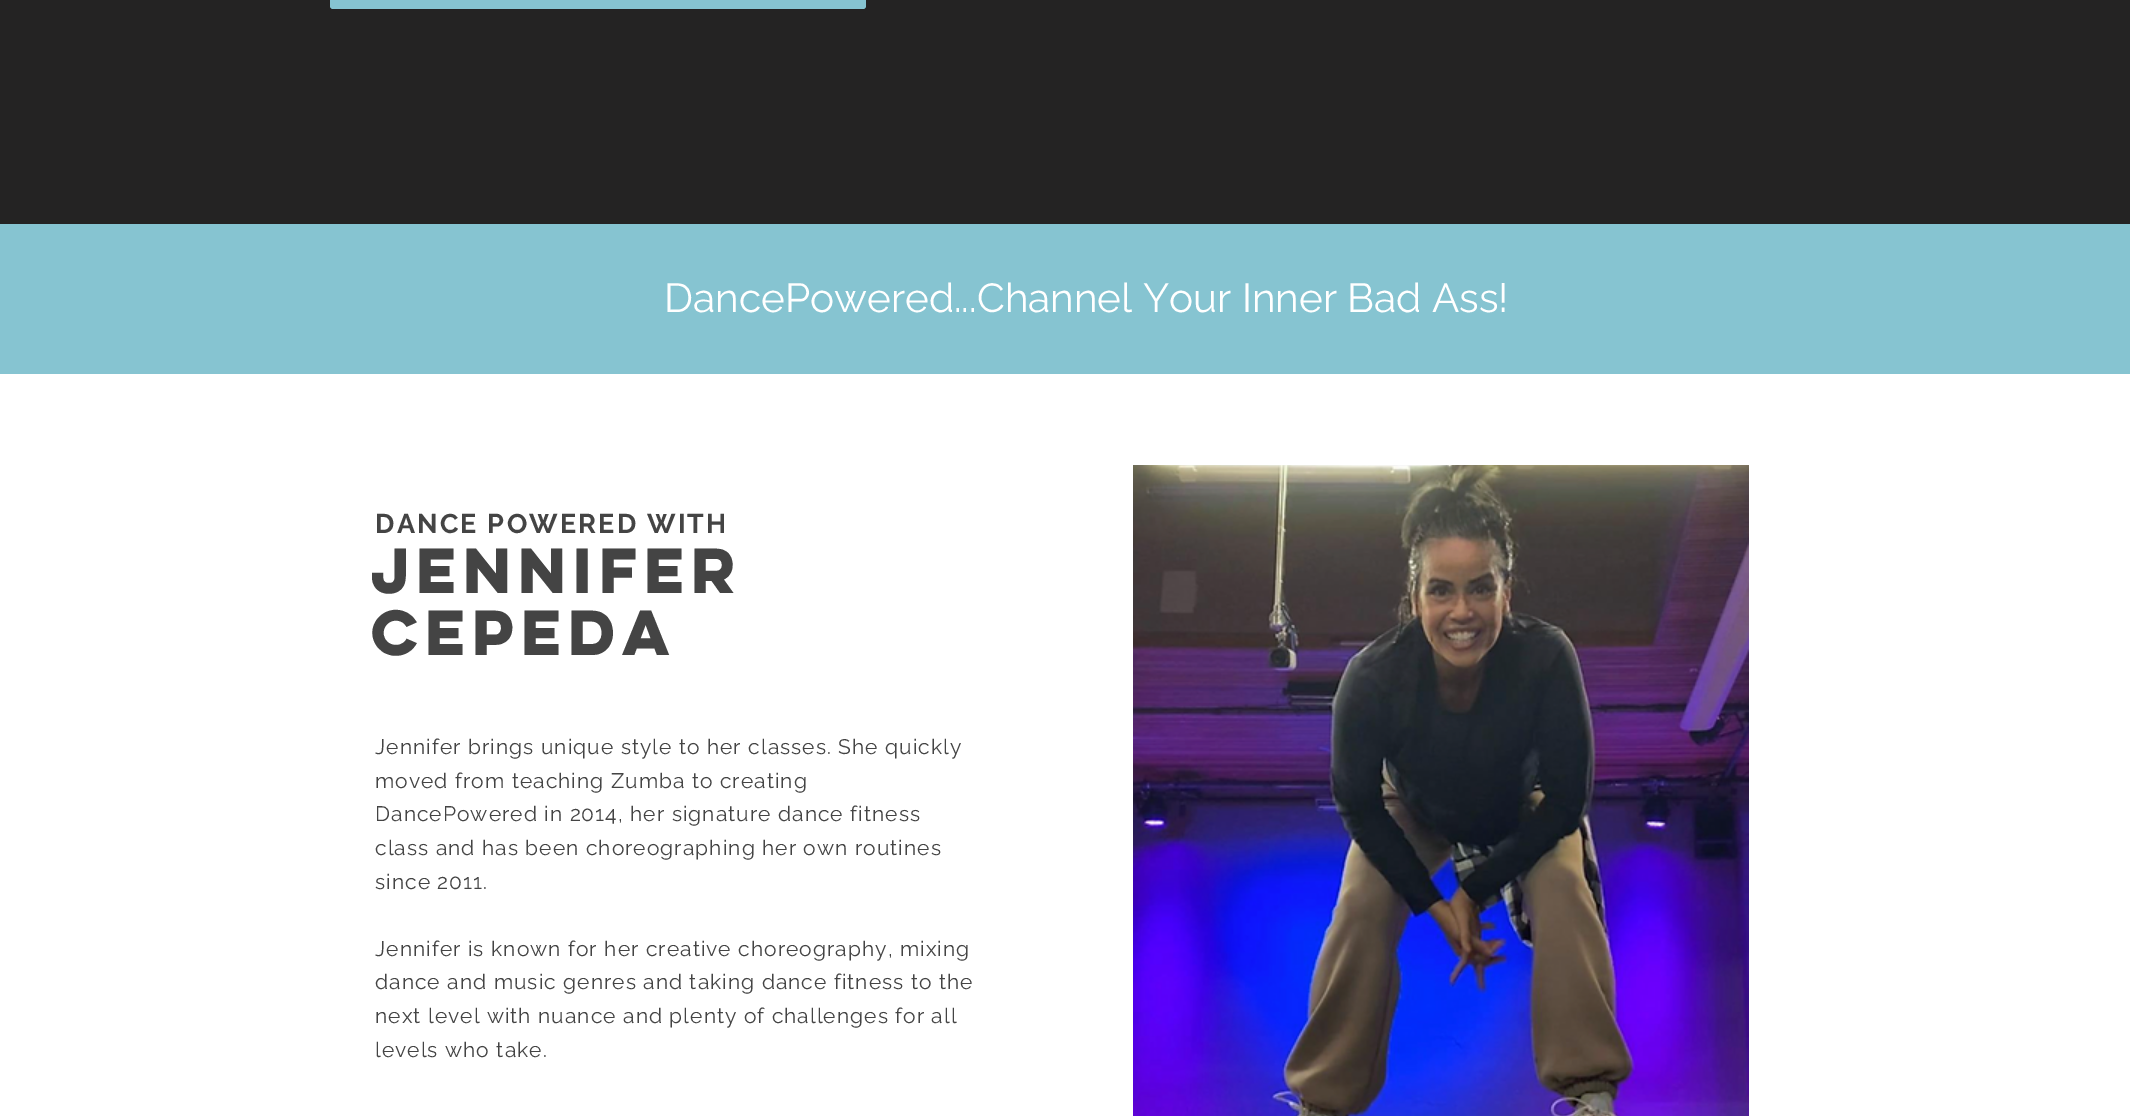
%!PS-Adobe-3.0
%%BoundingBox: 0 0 2130 1116
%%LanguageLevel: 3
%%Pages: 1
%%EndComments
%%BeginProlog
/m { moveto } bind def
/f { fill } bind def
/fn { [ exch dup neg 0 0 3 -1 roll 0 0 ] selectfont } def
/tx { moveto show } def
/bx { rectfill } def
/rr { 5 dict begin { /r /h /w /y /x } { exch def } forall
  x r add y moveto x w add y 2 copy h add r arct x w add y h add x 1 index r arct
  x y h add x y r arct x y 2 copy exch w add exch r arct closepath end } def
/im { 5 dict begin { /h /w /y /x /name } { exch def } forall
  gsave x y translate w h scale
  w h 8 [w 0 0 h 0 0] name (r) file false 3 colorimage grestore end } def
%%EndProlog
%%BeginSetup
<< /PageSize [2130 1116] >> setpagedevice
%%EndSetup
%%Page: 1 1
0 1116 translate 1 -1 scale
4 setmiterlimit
1 setgray
0 0 2130 1116 bx
0.141 0.137 0.137 setrgbcolor
0 0 2130 224 bx
0.525 0.769 0.82 setrgbcolor
330 -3 536 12 3 rr f
0 224 2130 150 bx
/Raleway-Regular 40.5 fn
1 setgray
(DancePowered...Channel Your Inner Bad Ass!) 664 312 tx
/Raleway-Bold 27 fn
0.267 setgray
375 533 m 2.2 0 (DANCE POWERED WITH) ashow
(image0.raw) 1133 465 616 651 im
/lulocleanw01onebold-Bold 57 fn
371 593 m -5.75 0 (JENNIFER) ashow
371 655 m -5.75 0 (CEPEDA) ashow
/Raleway-Regular 21 fn
375 754 m 1.05 0 (Jennifer brings unique style to her classes. She quickly) ashow
375 788 m 1.05 0 (moved from teaching Zumba to creating) ashow
375 821 m 1.05 0 (DancePowered in 2014, her signature dance fitness) ashow
375 855 m 1.05 0 (class and has been choreographing her own routines) ashow
375 889 m 1.05 0 (since 2011.) ashow
375 956 m 1.05 0 (Jennifer is known for her creative choreography, mixing) ashow
375 989 m 1.05 0 (dance and music genres and taking dance fitness to the) ashow
375 1023 m 1.05 0 (next level with nuance and plenty of challenges for all) ashow
375 1057 m 1.05 0 (levels who take.) ashow
showpage
%%EOF
